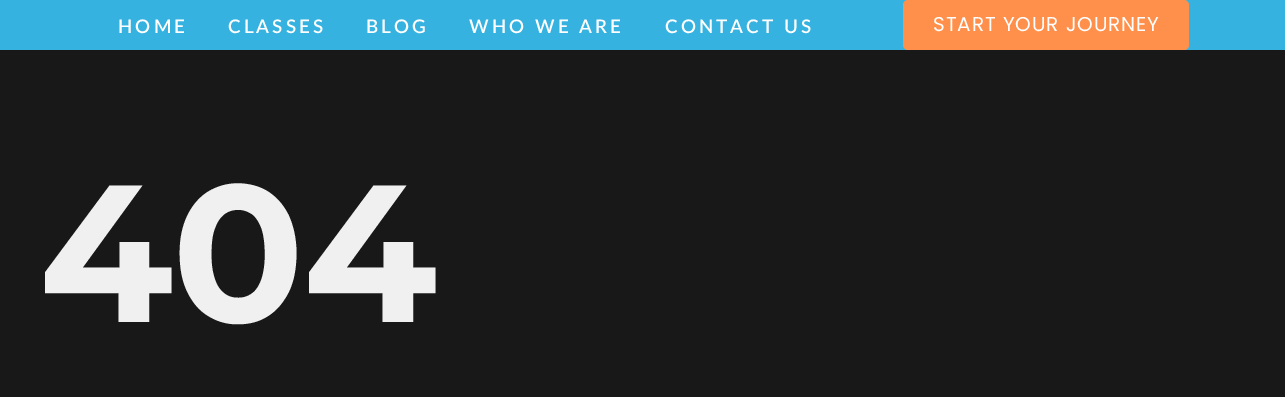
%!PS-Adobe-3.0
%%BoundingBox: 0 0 1285 397
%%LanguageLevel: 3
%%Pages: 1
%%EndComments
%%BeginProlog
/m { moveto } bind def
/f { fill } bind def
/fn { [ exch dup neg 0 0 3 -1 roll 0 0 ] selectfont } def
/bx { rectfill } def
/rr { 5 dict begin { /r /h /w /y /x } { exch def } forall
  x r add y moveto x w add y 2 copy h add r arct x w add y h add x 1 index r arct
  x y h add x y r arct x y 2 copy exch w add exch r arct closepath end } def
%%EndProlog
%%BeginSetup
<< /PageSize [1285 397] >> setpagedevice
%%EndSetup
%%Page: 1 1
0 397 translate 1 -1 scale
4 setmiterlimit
0.094 setgray
0 0 1285 397 bx
0.208 0.698 0.875 setrgbcolor
0 0 1285 50 bx
/Lato-SemiBold 18.75 fn
1 setgray
118 33 m 3.1 0 (HOME) ashow
228 33 m 3.1 0 (CLASSES) ashow
366 33 m 3.1 0 (BLOG) ashow
469 33 m 3.1 0 (WHO WE ARE) ashow
665 33 m 3.1 0 (CONTACT US) ashow
1 0.565 0.298 setrgbcolor
903 0 286 50 5 rr f
/Poppins-Regular 20 fn
1 setgray
933 31 m 0.9 0 (START YOUR JOURNEY) ashow
/Montserrat-Bold 195 fn
0.941 setgray
39 322 m -1.5 0 (404) ashow
showpage
%%EOF
